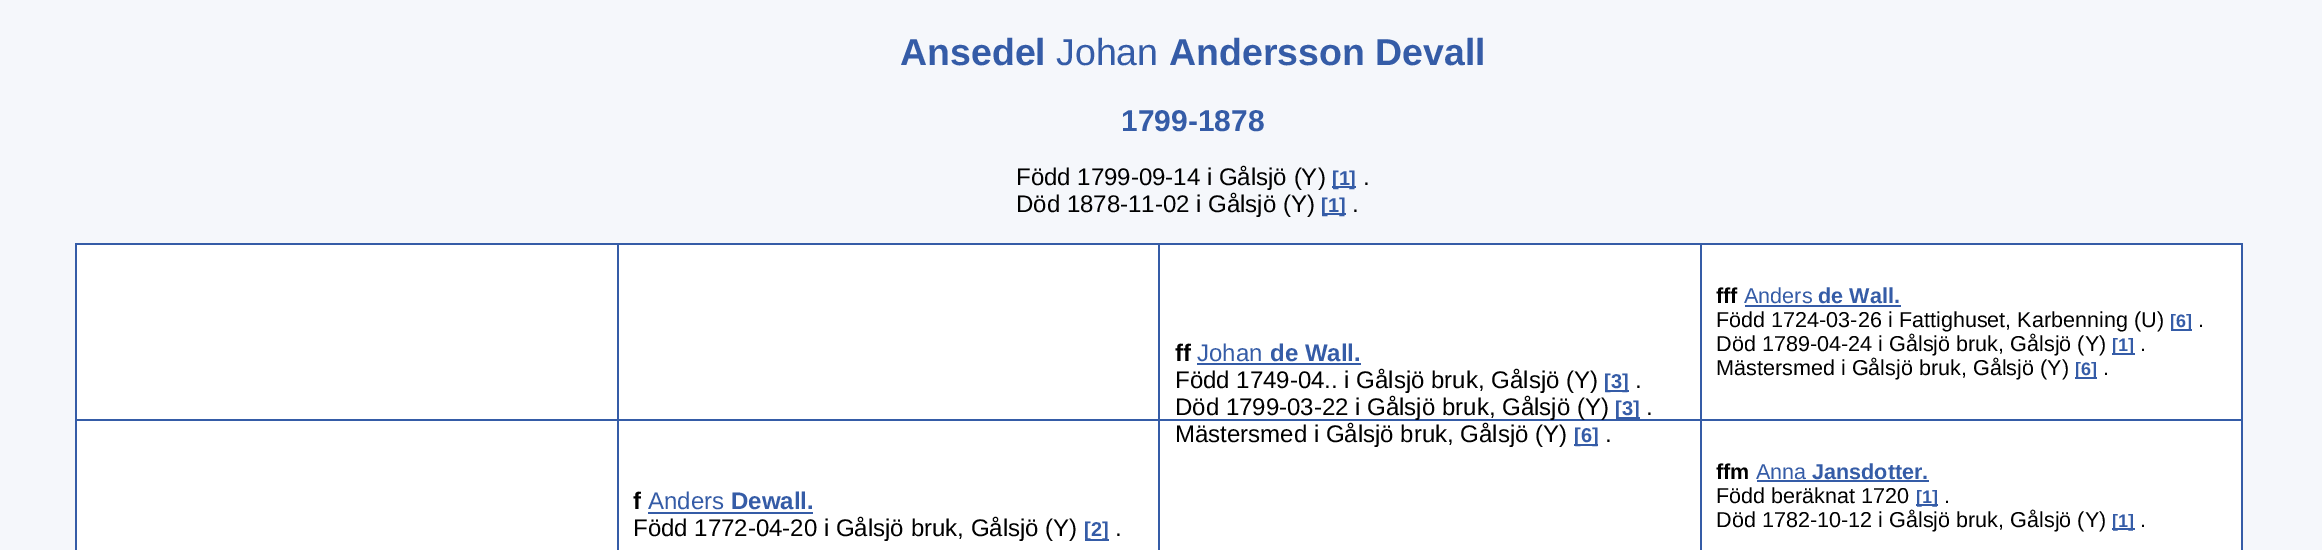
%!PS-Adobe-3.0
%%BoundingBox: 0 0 2322 550
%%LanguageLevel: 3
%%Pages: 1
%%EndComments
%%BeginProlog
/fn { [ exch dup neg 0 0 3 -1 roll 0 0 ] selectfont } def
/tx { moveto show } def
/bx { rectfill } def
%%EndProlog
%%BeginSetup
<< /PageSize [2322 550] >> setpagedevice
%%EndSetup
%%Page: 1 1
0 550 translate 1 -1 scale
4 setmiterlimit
0.961 0.969 0.984 setrgbcolor
0 0 2322 550 bx
/LiberationSans-Bold 37.5 fn
0.208 0.361 0.655 setrgbcolor
(Ansedel) 900 65 tx
/LiberationSans-Regular 37.5 fn
(Johan) 1056 65 tx
/LiberationSans-Bold 37.5 fn
(Andersson Devall) 1169 65 tx
/LiberationSans-Bold 30 fn
(1799-1878) 1121 131 tx
/LiberationSans-Regular 24 fn
0 setgray
(Född 1799-09-14 i Gålsjö \(Y\)) 1016 185 tx
0.208 0.361 0.655 setrgbcolor
1332 186 6 2 bx
/LiberationSans-Bold 20 fn
([1) 1332 185 tx
1338 186 18 2 bx
(]) 1349 185 tx
/LiberationSans-Regular 24 fn
0 setgray
(.) 1363 185 tx
(Död 1878-11-02 i Gålsjö \(Y\)) 1016 212 tx
0.208 0.361 0.655 setrgbcolor
1322 213 24 2 bx
/LiberationSans-Bold 20 fn
([1]) 1321 212 tx
/LiberationSans-Regular 24 fn
0 setgray
(.) 1352 212 tx
0.208 0.361 0.655 setrgbcolor
75 243 2168 2 bx
2241 243 2 307 bx
75 243 2 307 bx
1 setgray
77 245 540 305 bx
1702 245 539 174 bx
/LiberationSans-Bold 21.6 fn
0 setgray
(fff) 1716 303 tx
/LiberationSans-Regular 21.6 fn
0.208 0.361 0.655 setrgbcolor
(Anders) 1744 303 tx
1745 305 156 2 bx
/LiberationSans-Bold 21.6 fn
(de Wall.) 1818 303 tx
/LiberationSans-Regular 21.6 fn
0 setgray
(Född 1724-03-26 i Fattighuset, Karbenning \(U\)) 1716 327 tx
0.208 0.361 0.655 setrgbcolor
2171 329 21 2 bx
/LiberationSans-Bold 18 fn
([6]) 2170 327 tx
/LiberationSans-Regular 21.6 fn
0 setgray
(.) 2198 327 tx
(Död 1789-04-24 i Gålsjö bruk, Gålsjö \(Y\)) 1716 351 tx
0.208 0.361 0.655 setrgbcolor
2112 353 6 2 bx
/LiberationSans-Bold 18 fn
([1) 2112 351 tx
2118 353 17 2 bx
(]) 2128 351 tx
/LiberationSans-Regular 21.6 fn
0 setgray
(.) 2140 351 tx
(Mästersmed i Gålsjö bruk, Gålsjö \(Y\)) 1716 375 tx
0.208 0.361 0.655 setrgbcolor
2075 377 22 2 bx
/LiberationSans-Bold 18 fn
([6]) 2075 375 tx
/LiberationSans-Regular 21.6 fn
0 setgray
(.) 2103 375 tx
1 setgray
1160 245 540 305 bx
619 245 539 305 bx
0.208 0.361 0.655 setrgbcolor
75 419 2168 2 bx
1158 243 2 307 bx
/LiberationSans-Bold 24 fn
0 setgray
(ff) 1175 361 tx
/LiberationSans-Regular 24 fn
0.208 0.361 0.655 setrgbcolor
(Johan) 1197 361 tx
1197 363 164 2 bx
/LiberationSans-Bold 24 fn
(de Wall.) 1270 361 tx
/LiberationSans-Regular 24 fn
0 setgray
(Född 1749-04.. i Gålsjö bruk, Gålsjö \(Y\)) 1175 388 tx
0.208 0.361 0.655 setrgbcolor
1605 390 24 2 bx
/LiberationSans-Bold 20 fn
([3]) 1604 388 tx
/LiberationSans-Regular 24 fn
0 setgray
(.) 1635 388 tx
(Död 1799-03-22 i Gålsjö bruk, Gålsjö \(Y\)) 1175 415 tx
0.208 0.361 0.655 setrgbcolor
1616 417 24 2 bx
/LiberationSans-Bold 20 fn
([3]) 1615 415 tx
/LiberationSans-Regular 24 fn
0 setgray
(.) 1646 415 tx
(Mästersmed i Gålsjö bruk, Gålsjö \(Y\)) 1175 442 tx
0.208 0.361 0.655 setrgbcolor
1574 444 24 2 bx
/LiberationSans-Bold 20 fn
([6]) 1574 442 tx
/LiberationSans-Regular 24 fn
0 setgray
(.) 1605 442 tx
0.208 0.361 0.655 setrgbcolor
617 243 2 307 bx
/LiberationSans-Bold 24 fn
0 setgray
(f) 633 509 tx
/LiberationSans-Regular 24 fn
0.208 0.361 0.655 setrgbcolor
(Anders) 648 509 tx
648 512 165 2 bx
/LiberationSans-Bold 24 fn
(Dewall.) 731 509 tx
/LiberationSans-Regular 24 fn
0 setgray
(Född 1772-04-20 i Gålsjö bruk, Gålsjö \(Y\)) 633 536 tx
0.208 0.361 0.655 setrgbcolor
1085 539 24 2 bx
/LiberationSans-Bold 20 fn
([2]) 1084 536 tx
/LiberationSans-Regular 24 fn
0 setgray
(.) 1115 536 tx
1 setgray
1702 421 539 129 bx
0.208 0.361 0.655 setrgbcolor
1700 243 2 307 bx
/LiberationSans-Bold 21.6 fn
0 setgray
(ffm) 1716 479 tx
/LiberationSans-Regular 21.6 fn
0.208 0.361 0.655 setrgbcolor
(Anna) 1756 479 tx
1757 480 172 2 bx
/LiberationSans-Bold 21.6 fn
(Jansdotter.) 1812 479 tx
/LiberationSans-Regular 21.6 fn
0 setgray
(Född beräknat 1720) 1716 503 tx
0.208 0.361 0.655 setrgbcolor
1916 504 22 2 bx
/LiberationSans-Bold 18 fn
([1]) 1916 503 tx
/LiberationSans-Regular 21.6 fn
0 setgray
(.) 1944 503 tx
(Död 1782-10-12 i Gålsjö bruk, Gålsjö \(Y\)) 1716 527 tx
0.208 0.361 0.655 setrgbcolor
2112 528 6 2 bx
/LiberationSans-Bold 18 fn
([1) 2112 527 tx
2118 528 17 2 bx
(]) 2128 527 tx
/LiberationSans-Regular 21.6 fn
0 setgray
(.) 2140 527 tx
showpage
%%EOF
